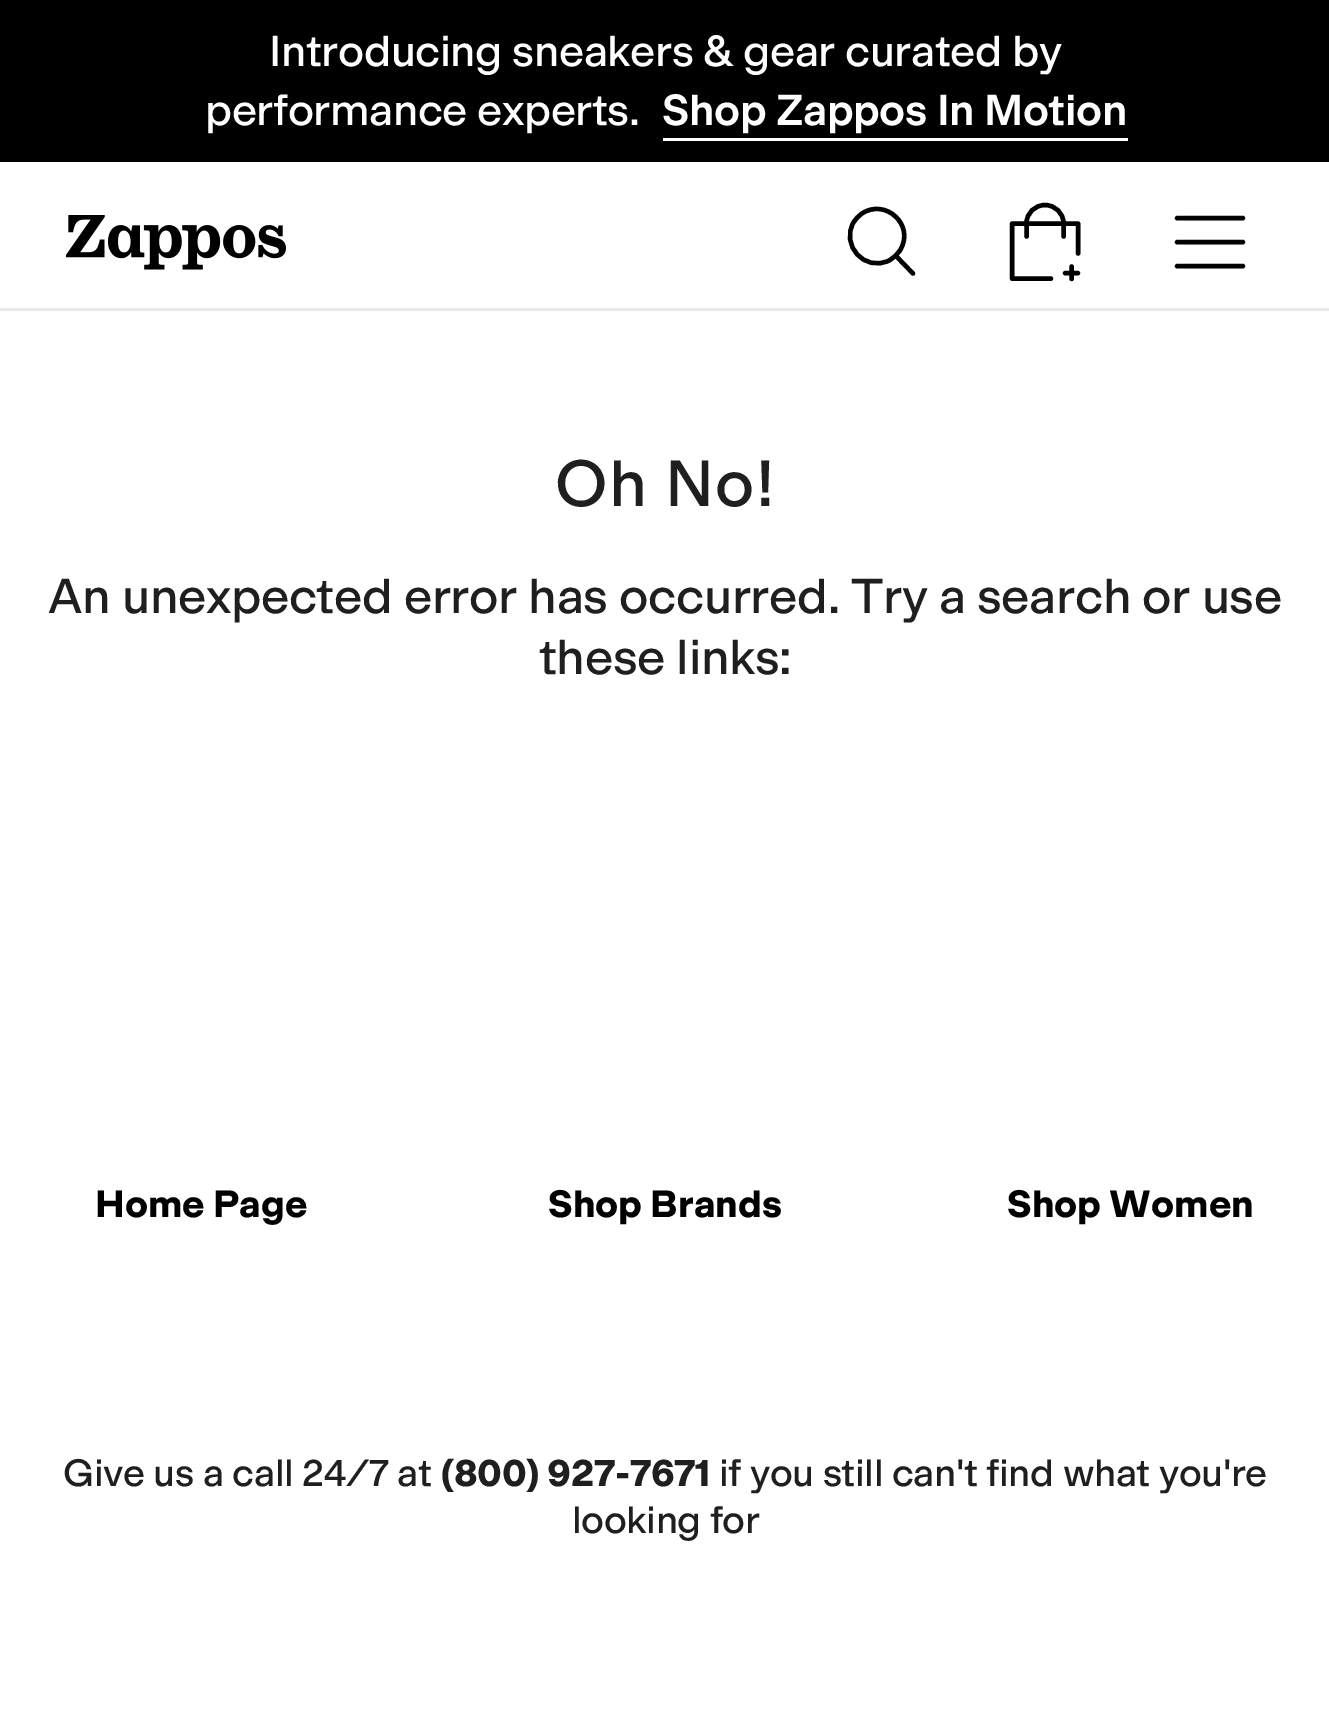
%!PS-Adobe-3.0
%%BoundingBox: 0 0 1329 1709
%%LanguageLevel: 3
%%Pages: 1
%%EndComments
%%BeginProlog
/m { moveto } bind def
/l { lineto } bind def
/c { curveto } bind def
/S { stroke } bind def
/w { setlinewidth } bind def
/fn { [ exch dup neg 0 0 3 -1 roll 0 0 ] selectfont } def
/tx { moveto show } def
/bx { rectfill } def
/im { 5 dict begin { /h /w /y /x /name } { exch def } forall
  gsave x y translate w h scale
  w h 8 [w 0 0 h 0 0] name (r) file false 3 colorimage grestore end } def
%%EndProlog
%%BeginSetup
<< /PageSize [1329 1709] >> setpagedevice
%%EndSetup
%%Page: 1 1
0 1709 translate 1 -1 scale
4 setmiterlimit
1 setgray
0 0 1329 1709 bx
0 setgray
0 0 1329 162 bx
/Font-Regular 44 fn
1 setgray
269 66 m -0.45 0 (Introducing sneakers & gear curated by) ashow
205 125 m -0.45 0 (performance experts.) ashow
/Font-Medium 44 fn
662 125 m -0.45 0 (Shop Zappos In Motion) ashow
663 138 465 3 bx
0.914 setgray
0 308 1329 3 bx
(image0.raw) 66 215 220 55 im
0.012 setgray
4.4 w
1 setlinecap
1 setlinejoin
853.5 222.5 m 840.5 245 864.5 272.5 889 260.5 c 893.5 258 897.5 254.5 900.5 249.5 c 915 224.5 885 198 862 213.5 c 858.5 216 855.5 219 853.5 222.5 c S
0 setlinejoin
896 256 m 913 273.5 l S
0 setgray
1 setlinejoin
1063.5 236.5 m 1063.5 223 l 1063.5 213 1055 205 1045 205 c 1035 205 1026.5 213 1026.5 223 c 1026.5 236.5 l 1065 273 m 1078 273 l 1071.5 266.5 m 1071.5 279 l S
1078 253.5 m 1078 223.5 l 1012 223.5 l 1012 278.5 l 1051 278.5 l S
0.012 setgray
0 setlinejoin
1177 266 m 1243 266 l 1177 242 m 1243 242 l 1177 218 m 1243 218 l S
/Font-Regular 66 fn
0.122 setgray
555 506 m 1.25 0 (Oh No!) ashow
/Font-Regular 49.5 fn
48 613 m -0.4 0 (An unexpected error has occurred. Try a search or use) ashow
539 674 m -0.4 0 (these links:) ashow
/Font-Bold 38.5 fn
0 setgray
(Home Page) 95 1217 tx
(Shop Brands) 548 1217 tx
(Shop Women) 1007 1217 tx
/Font-Regular 38.5 fn
0.122 setgray
63 1486 m -0.4 0 (Give us a call 24/7 at) ashow
/Font-Bold 38.5 fn
441 1486 m -0.4 0 (\(800\) 927-7671) ashow
/Font-Regular 38.5 fn
719 1486 m -0.4 0 (if you still can't find what you're) ashow
572 1533 m -0.4 0 (looking for) ashow
showpage
%%EOF
